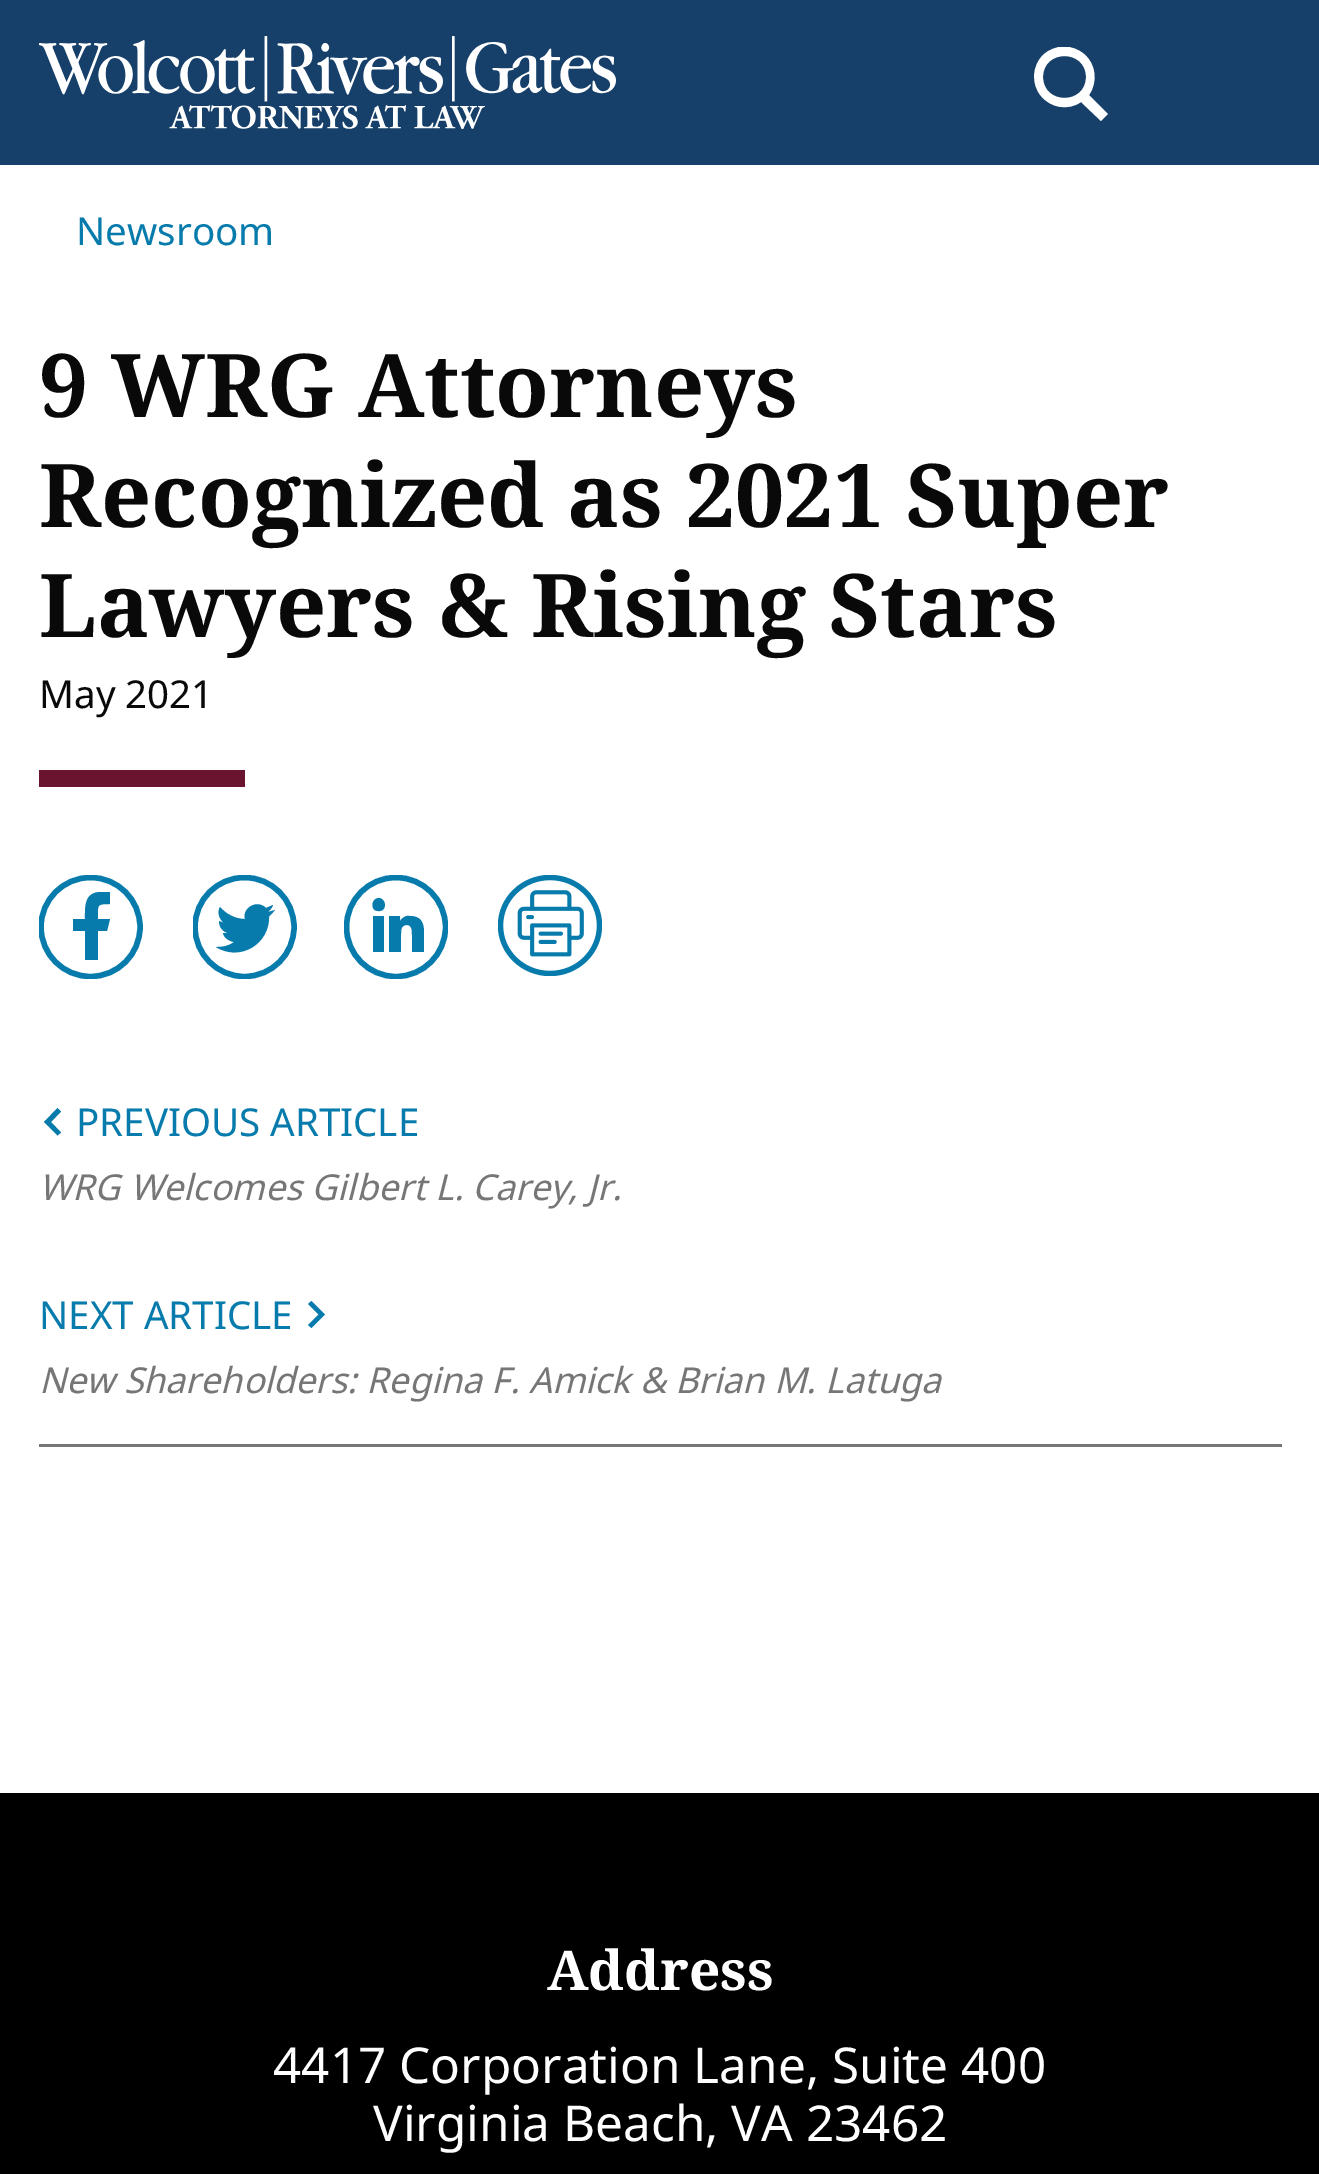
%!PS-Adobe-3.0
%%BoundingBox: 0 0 1319 2174
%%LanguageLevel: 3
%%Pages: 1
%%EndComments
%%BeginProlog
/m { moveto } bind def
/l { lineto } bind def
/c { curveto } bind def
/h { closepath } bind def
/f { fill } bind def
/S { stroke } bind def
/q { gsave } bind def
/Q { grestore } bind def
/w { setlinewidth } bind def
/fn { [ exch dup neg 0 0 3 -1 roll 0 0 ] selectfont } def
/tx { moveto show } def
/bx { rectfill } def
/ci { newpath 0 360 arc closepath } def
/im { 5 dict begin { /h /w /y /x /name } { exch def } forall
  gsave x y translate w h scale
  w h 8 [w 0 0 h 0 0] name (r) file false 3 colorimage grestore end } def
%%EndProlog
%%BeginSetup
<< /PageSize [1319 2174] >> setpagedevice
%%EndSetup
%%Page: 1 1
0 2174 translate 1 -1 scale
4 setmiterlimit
1 setgray
0 0 1319 2174 bx
0.086 0.251 0.416 setrgbcolor
0 0 1319 165 bx
(image0.raw) 39 36 577 93 im
q
1034 47 74 74 rectclip
1 setgray
1108 114 m 1089 95 l 1098 82 1096 64 1084 54 c 1072 44 1055 44 1043 55 c 1032 66 1031 84 1041 96 c 1051 108 1068 111 1081 102 c 1101 121 l h 1043 77 m 1043 49 1086 49 1086 77 c 1086 105 1043 105 1043 77 c h f
Q
/NotoSans-Regular 38.5 fn
0.027 0.482 0.675 setrgbcolor
(Newsroom) 76 245 tx
/NotoSerif-Bold 88 fn
0.035 setgray
(9 WRG Attorneys) 39 417 tx
(Recognized as 2021 Super) 39 527 tx
(Lawyers & Rising Stars) 39 637 tx
/NotoSans-Regular 38.5 fn
(May 2021) 39 708 tx
0.42 0.078 0.188 setrgbcolor
39 770 206 17 bx
0.027 0.482 0.675 setrgbcolor
101 892 m 84 892 85 907 85 919 c 73 919 l 73 931 l 85 931 l 85 960 l 98 960 l 98 931 l 107 931 l 110 919 l 98 919 l 98 905 96 904 110 904 c 110 892 l h f
q
39 875 104 104 rectclip
5.5 w
90.5 927 49.5 ci S
Q
275 910 m 268 912 l 270 910 272 908 273 905 c 266 908 l 257 899 242 908 245 919 c 235 919 226 914 220 907 c 217 912 219 919 224 923 c 219 921 l 219 927 223 932 228 933 c 223 933 l 224 938 229 941 234 942 c 229 946 223 947 216 947 c 240 962 270 944 269 916 c 271 915 273 912 275 910 c h f
q
193 875 104 104 rectclip
5.5 w
244.5 927 49.5 ci S
Q
379 898 m 371 898 370 911 378 911 c 387 912 387 899 379 898 c h 410 916 m 406 915 402 918 400 921 c 400 916 l 389 916 l 389 952 l 401 952 l 401 934 l 401 930 401 925 407 925 c 412 925 412 931 412 935 c 412 952 l 424 952 l 424 932 l 424 923 421 916 410 916 c h 373 916 m 373 952 l 384 952 l 384 916 l h f
q
344 875 104 104 rectclip
5.5 w
396 927 49.5 ci S
Q
(image1.raw) 498 875 104 101 im
0.463 setgray
39 1444 1243 3 bx
0.027 0.482 0.675 setrgbcolor
61 1132.5 m 57.5 1135.5 l 44 1122 l 57.5 1108 l 61 1111.5 l 51 1122 l h f
(PREVIOUS ARTICLE) 76 1136 tx
/NotoSans-Italic 35.75 fn
0.463 setgray
(WRG Welcomes Gilbert L. Carey, Jr.) 39 1200 tx
/NotoSans-Regular 38.5 fn
0.027 0.482 0.675 setrgbcolor
(NEXT ARTICLE) 39 1329 tx
308 1325 m 311.5 1328 l 325 1314.5 l 311.5 1301 l 308 1304 l 318.5 1314.5 l h f
/NotoSans-Italic 35.75 fn
0.463 setgray
(New Shareholders: Regina F. Amick & Brian M. Latuga) 39 1393 tx
0 setgray
0 1793 1319 381 bx
/NotoSerif-Bold 55 fn
1 setgray
(Address) 547 1990 tx
/NotoSans-Regular 49.5 fn
(4417 Corporation Lane, Suite 400) 273 2083 tx
(Virginia Beach, VA 23462) 373 2141 tx
showpage
%%EOF
